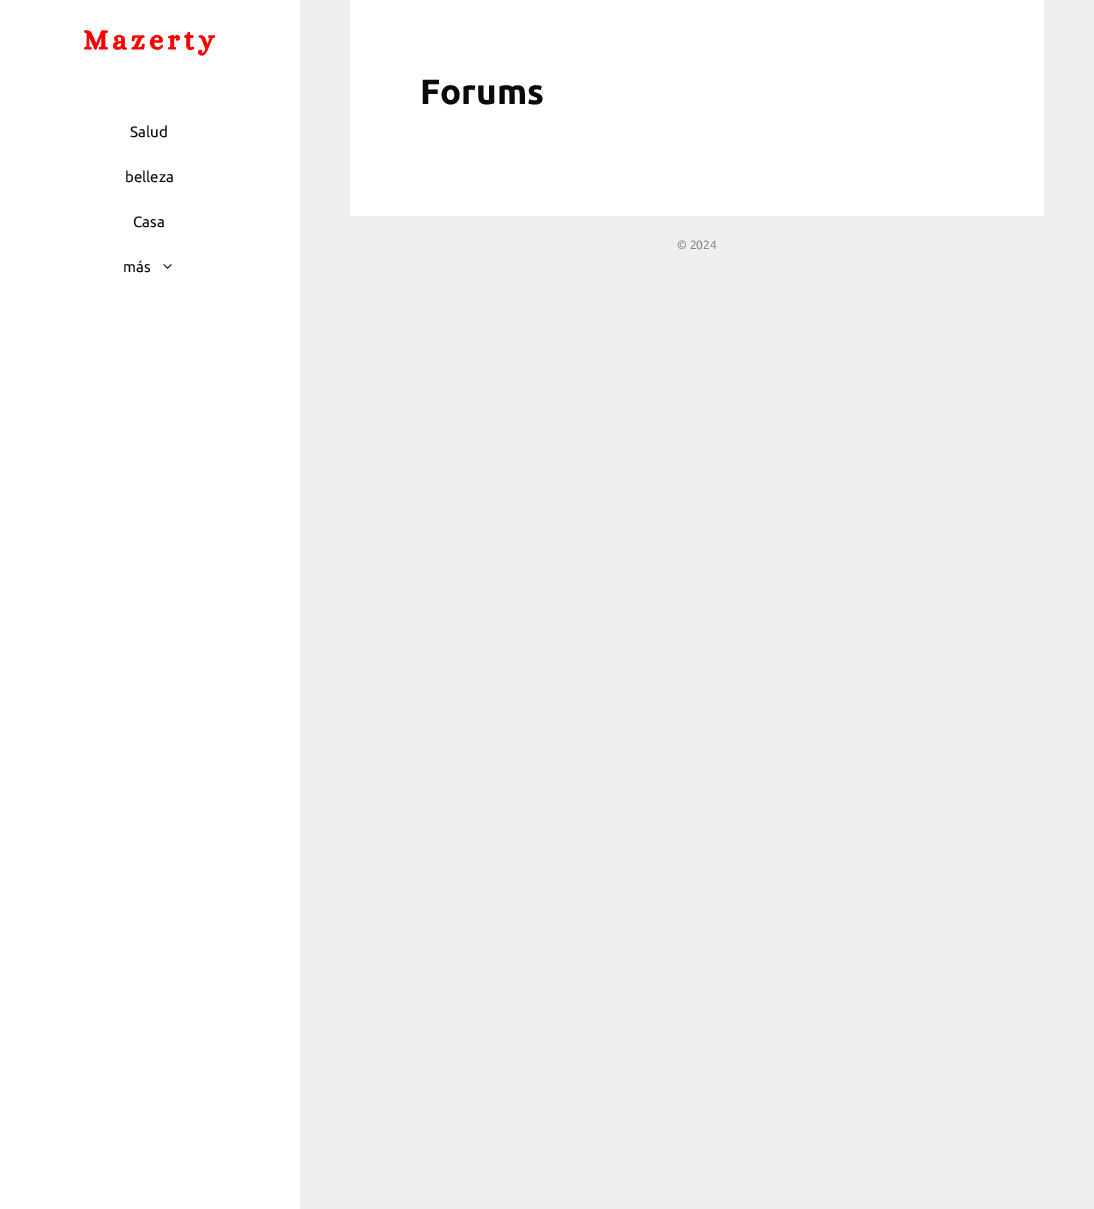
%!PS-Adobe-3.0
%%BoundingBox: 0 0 1094 1209
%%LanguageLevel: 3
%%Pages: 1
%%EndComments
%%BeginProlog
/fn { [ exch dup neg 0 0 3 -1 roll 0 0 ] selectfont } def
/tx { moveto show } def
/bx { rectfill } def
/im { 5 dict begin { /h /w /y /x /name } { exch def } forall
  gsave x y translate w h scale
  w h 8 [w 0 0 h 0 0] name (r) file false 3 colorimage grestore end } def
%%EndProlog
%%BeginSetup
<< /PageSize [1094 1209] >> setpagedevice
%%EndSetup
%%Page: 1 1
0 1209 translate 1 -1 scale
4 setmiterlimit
0.937 setgray
0 0 1094 1209 bx
1 setgray
350 0 694 216 bx
/Ubuntu-Bold 35 fn
0.039 setgray
(Forums) 420 104 tx
1 setgray
0 0 300 1209 bx
(image0.raw) 84 30 132 26 im
/Ubuntu-Regular 15 fn
0.039 setgray
(Salud) 130 137 tx
(belleza) 125 182 tx
(Casa) 133 227 tx
(más) 123 272 tx
(image1.raw) 163 264 9 5 im
/Ubuntu-Regular 12 fn
0.529 setgray
(© 2024) 677 249 tx
showpage
%%EOF
